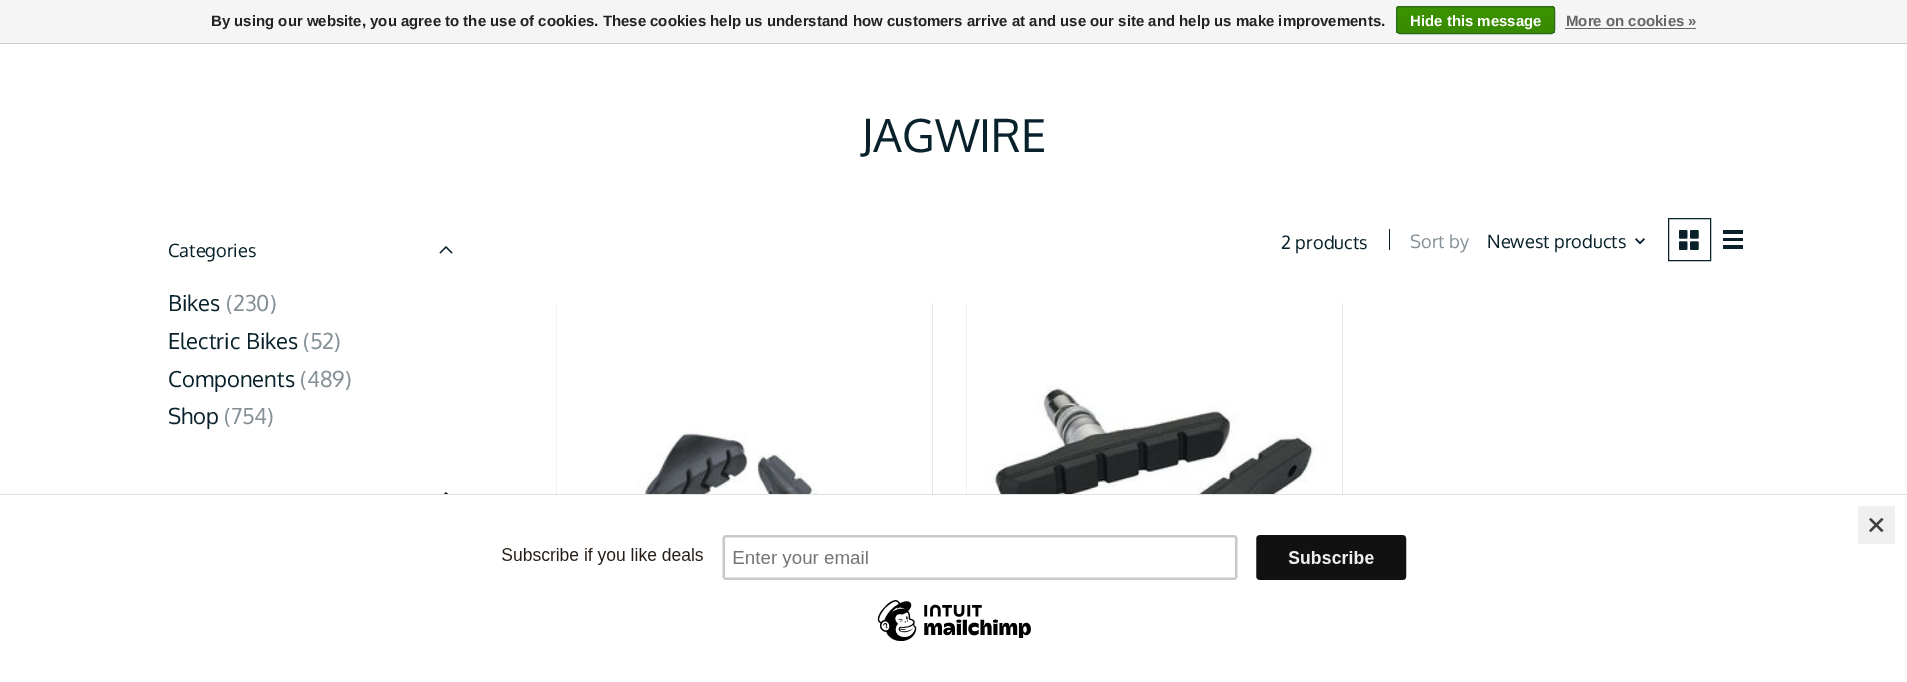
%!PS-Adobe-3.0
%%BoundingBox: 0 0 1907 682
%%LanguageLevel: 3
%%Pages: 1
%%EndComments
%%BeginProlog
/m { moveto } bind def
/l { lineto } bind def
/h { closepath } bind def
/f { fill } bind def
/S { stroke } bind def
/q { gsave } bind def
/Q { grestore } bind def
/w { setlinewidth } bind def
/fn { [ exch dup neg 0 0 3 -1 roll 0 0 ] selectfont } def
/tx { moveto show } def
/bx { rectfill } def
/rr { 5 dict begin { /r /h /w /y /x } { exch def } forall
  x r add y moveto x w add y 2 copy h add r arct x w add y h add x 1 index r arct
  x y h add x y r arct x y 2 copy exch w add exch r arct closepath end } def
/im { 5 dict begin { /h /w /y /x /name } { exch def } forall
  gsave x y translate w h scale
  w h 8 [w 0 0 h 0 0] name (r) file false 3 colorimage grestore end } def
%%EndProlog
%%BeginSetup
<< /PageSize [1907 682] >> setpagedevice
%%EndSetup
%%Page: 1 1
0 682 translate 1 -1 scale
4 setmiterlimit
1 setgray
0 0 1907 682 bx
0.961 setgray
0 0 1907 43 bx
0.8 setgray
0 43 1907 1 bx
/LiberationSans-Bold 15 fn
0.133 setgray
(By using our website, you agree to the use of cookies. These cookies help us understand how customers arrive at and use our site and help us make improvements.) 211 26 tx
q
1396 6 159 28 4 rr clip newpath
q 1396 6 m 1555 6 l 1555 8 l 1396 8 l h clip newpath
<< /ShadingType 2 /ColorSpace /DeviceRGB /Coords [1476 -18 1476 7.5] /Extend [true true] /Function << /FunctionType 2 /Domain [0 1] /C0 [0.235 0.576 0] /C1 [0.224 0.541 0] /N 1 >> >> shfill Q
q 1396 8 m 1555 8 l 1555 33 l 1396 33 l h clip newpath
<< /ShadingType 2 /ColorSpace /DeviceRGB /Coords [1476 7.5 1476 33] /Extend [true true] /Function << /FunctionType 2 /Domain [0 1] /C0 [0.235 0.576 0] /C1 [0.224 0.541 0] /N 1 >> >> shfill Q
Q
0.161 0.412 0.114 setrgbcolor
1396.5 6.5 158 27 3.5 rr S
1 setgray
(Hide this message) 1410 26 tx
0.4 setgray
(More on cookies ») 1566 26 tx
1565 28 131 1 bx
/Oxygen-Regular 45.5 fn
0.031 0.129 0.169 setrgbcolor
(JAGWIRE) 861 152 tx
/Oxygen-Regular 18.25 fn
(Categories) 168 257 tx
1.3 w
2 setlinecap
440.5 252.5 m 446 247 l 451.5 252.5 m 446 247 l S
/Oxygen-Regular 22 fn
(Bikes) 168 311 tx
0.518 0.565 0.584 setrgbcolor
(\(230\)) 226 311 tx
0.031 0.129 0.169 setrgbcolor
(Electric Bikes) 168 349 tx
0.518 0.565 0.584 setrgbcolor
(\(52\)) 303 349 tx
0.031 0.129 0.169 setrgbcolor
(Components) 168 387 tx
0.518 0.565 0.584 setrgbcolor
(\(489\)) 300 387 tx
0.031 0.129 0.169 setrgbcolor
(Shop) 168 424 tx
0.518 0.565 0.584 setrgbcolor
(\(754\)) 224 424 tx
0.031 0.129 0.169 setrgbcolor
440.5 498.5 m 446 493 l 451.5 498.5 m 446 493 l S
/Oxygen-Regular 18.25 fn
(2 products) 1281 249 tx
1389 229 1 21 bx
0.518 0.565 0.584 setrgbcolor
(Sort by) 1410 248 tx
0.031 0.129 0.169 setrgbcolor
(Newest products) 1487 248 tx
(image0.raw) 1635 238 10 7 im
1 w
0 setlinecap
1668.5 218.5 42 42 rectstroke
(image1.raw) 1679 230 20 20 im
1723 230 20 4 bx
1723 238 20 3 bx
1723 245 20 4 bx
0.855 0.871 0.878 setrgbcolor
556 303 377 191 bx
(image2.raw) 556 303 377 191 im
966 303 377 191 bx
(image3.raw) 966 303 377 191 im
1 setgray
439 495 14 5 bx
0.878 setgray
0 494 1907 1 bx
(image4.raw) 502 535 905 106 im
0.937 setgray
1858 506 37 38 bx
0.255 setgray
1881.5 518 m 1883.5 519.5 l 1871 532 l 1869 530.5 l h f
1869 519.5 m 1871 518 l 1883.5 530.5 l 1881.5 532 l h f
showpage
%%EOF
